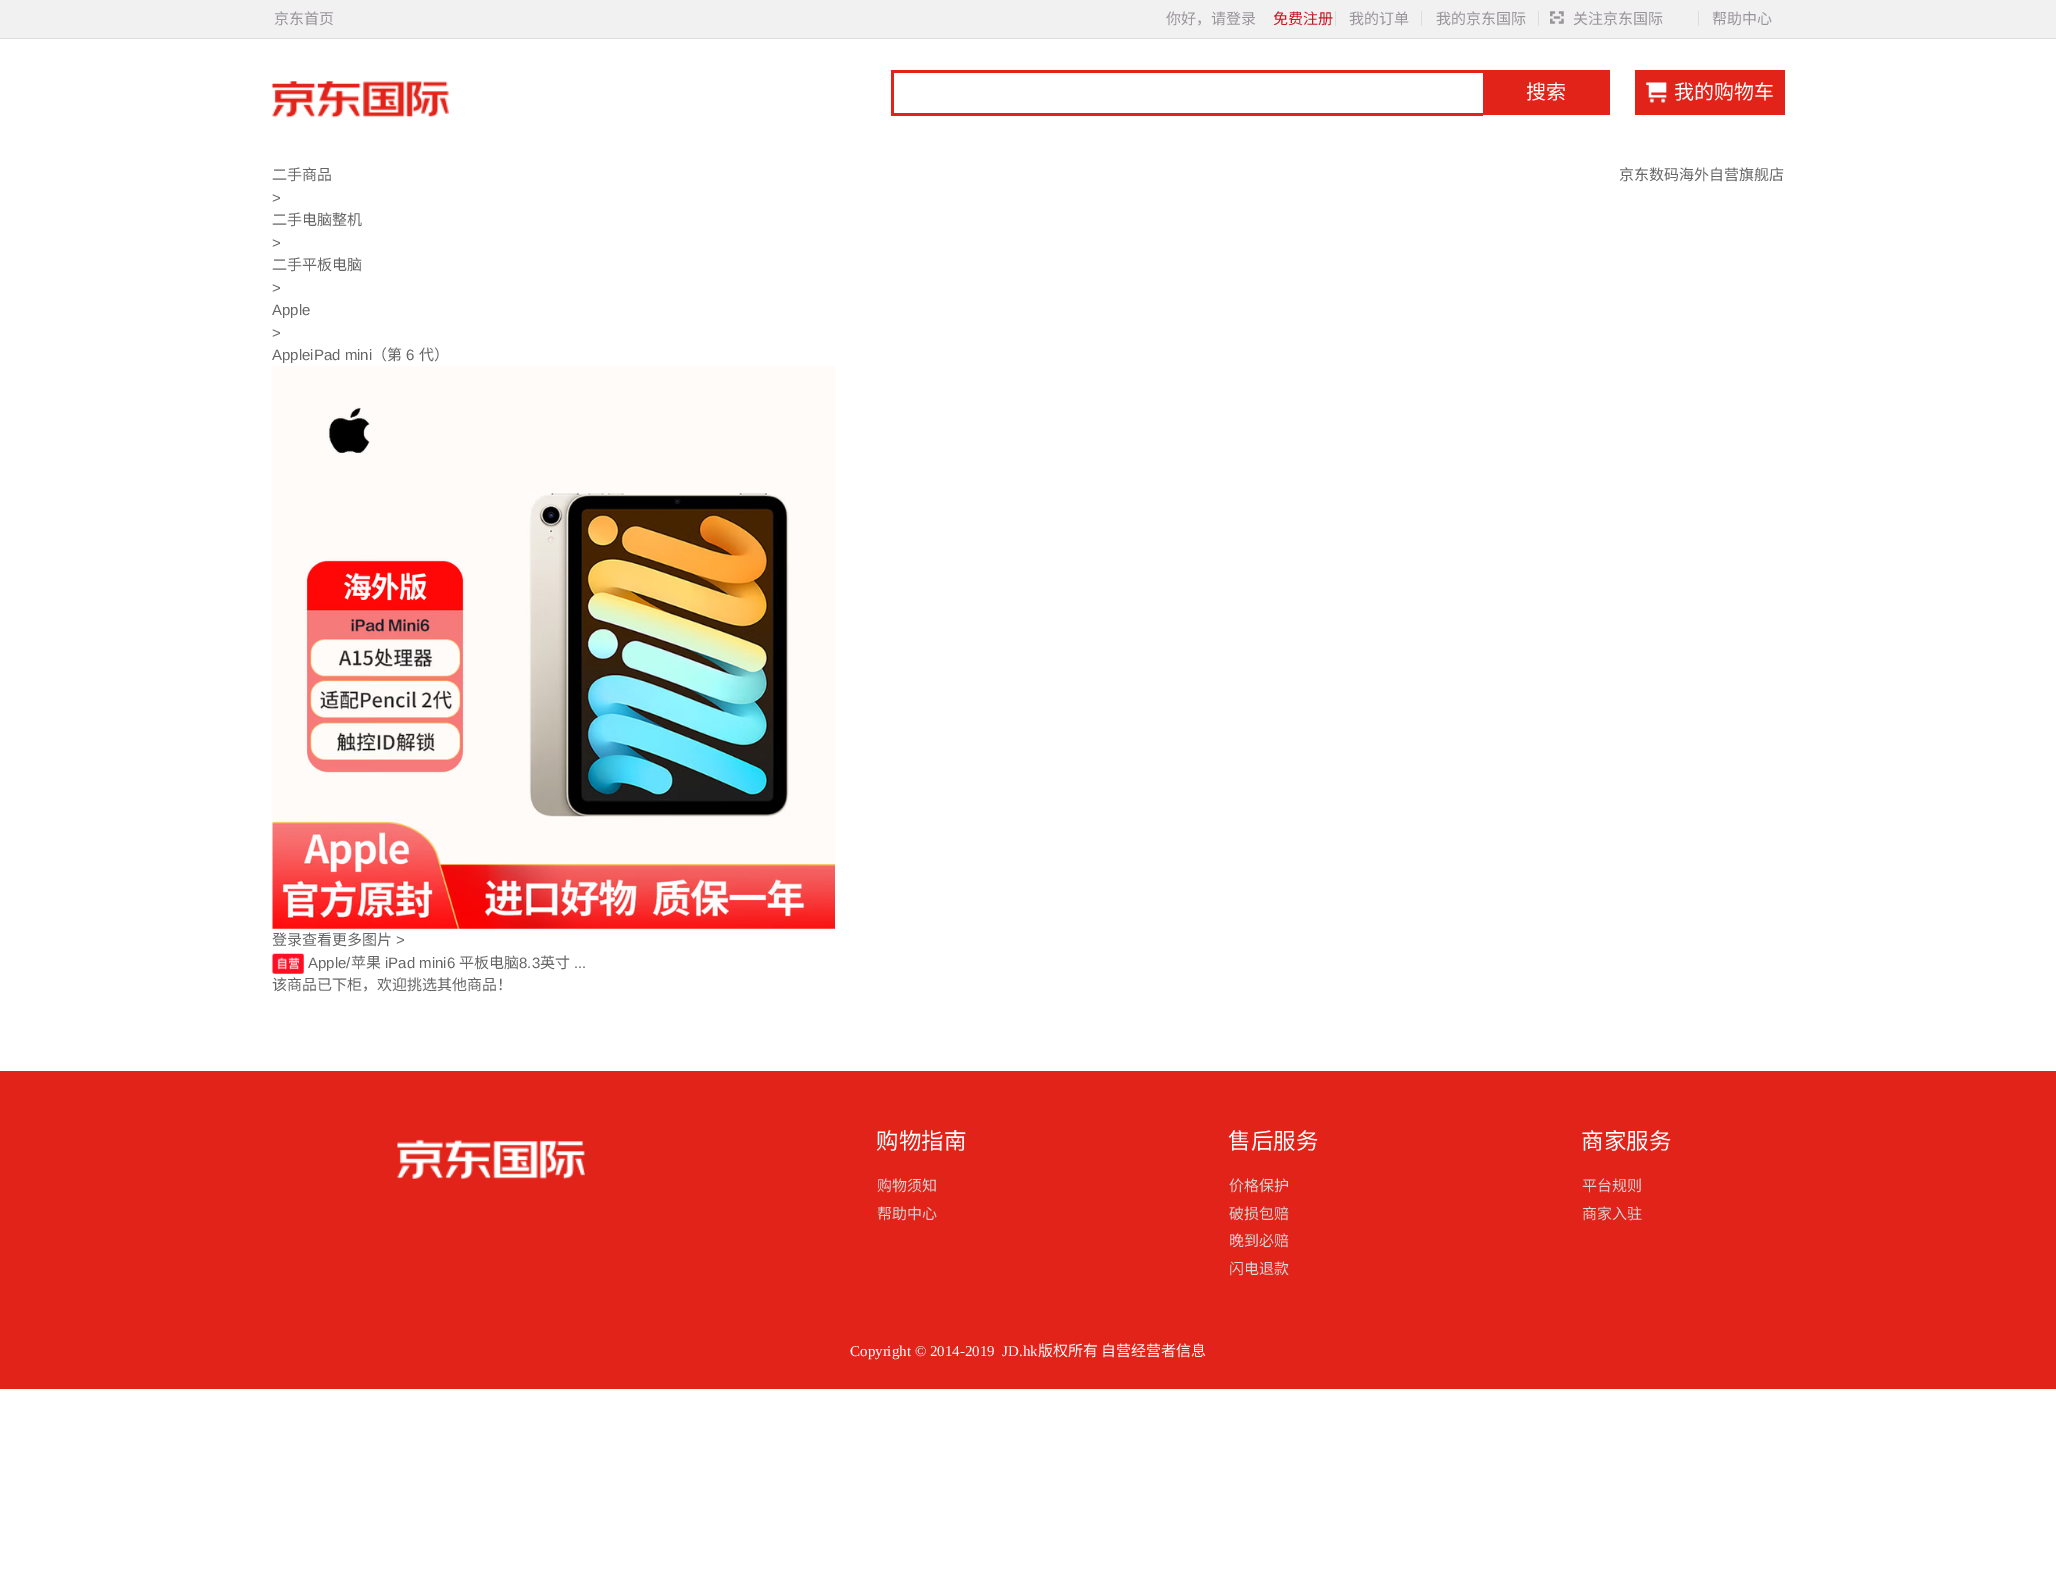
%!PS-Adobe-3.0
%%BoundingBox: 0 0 2056 1589
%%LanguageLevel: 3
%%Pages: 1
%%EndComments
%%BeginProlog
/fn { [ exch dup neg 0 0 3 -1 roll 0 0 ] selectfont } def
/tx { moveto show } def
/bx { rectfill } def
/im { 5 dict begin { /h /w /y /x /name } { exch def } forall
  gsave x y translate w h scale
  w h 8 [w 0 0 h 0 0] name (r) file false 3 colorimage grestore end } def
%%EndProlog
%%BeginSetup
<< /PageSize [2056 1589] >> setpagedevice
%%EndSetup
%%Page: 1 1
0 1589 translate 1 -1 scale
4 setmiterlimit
1 setgray
0 0 2056 1589 bx
0.945 setgray
0 0 2056 38 bx
0.867 setgray
0 38 2056 1 bx
/NotoSansCJKSC-Regular 15 fn
0.604 0.58 0.608 setrgbcolor
(京东首页) 274 24 tx
(你好，请登录) 1166 24 tx
0.784 0.086 0.137 setrgbcolor
(免费注册) 1273 24 tx
0.867 setgray
1335 11 1 15 bx
0.604 0.58 0.608 setrgbcolor
(我的订单) 1349 24 tx
0.867 setgray
1421 11 1 15 bx
0.604 0.58 0.608 setrgbcolor
(我的京东国际) 1436 24 tx
0.867 setgray
1538 11 1 15 bx
(image0.raw) 1550 11 14 13 im
0.604 0.58 0.608 setrgbcolor
(关注京东国际) 1573 24 tx
0.867 setgray
1698 11 1 15 bx
0.604 0.58 0.608 setrgbcolor
(帮助中心) 1712 24 tx
(image1.raw) 272 81 177 37 im
0.886 0.137 0.102 setrgbcolor
891 70 592 3 bx
891 113 592 3 bx
891 70 3 45 bx
1483 70 127 45 bx
/NotoSansCJKSC-Regular 20 fn
1 setgray
(搜索) 1526 99 tx
0.886 0.137 0.102 setrgbcolor
1635 70 150 45 bx
(image2.raw) 1646 82 21 21 im
1 setgray
(我的购物车) 1674 99 tx
/NotoSansCJKSC-Regular 15 fn
0.4 setgray
(二手商品) 272 180 tx
/LiberationSans-Regular 15 fn
(>) 272 203 tx
/NotoSansCJKSC-Regular 15 fn
(二手电脑整机) 272 225 tx
/LiberationSans-Regular 15 fn
(>) 272 248 tx
/NotoSansCJKSC-Regular 15 fn
(二手平板电脑) 272 270 tx
/LiberationSans-Regular 15 fn
(>) 272 293 tx
(Apple) 272 315 tx
(>) 272 338 tx
(AppleiPad mini) 272 360 tx
/NotoSansCJKSC-Regular 15 fn
(（第) 372 360 tx
/LiberationSans-Regular 15 fn
(6) 406 360 tx
/NotoSansCJKSC-Regular 15 fn
(代）) 419 360 tx
(京东数码海外自营旗舰店) 1619 180 tx
(image3.raw) 272 366 563 563 im
(登录查看更多图片) 272 945 tx
/LiberationSans-Regular 15 fn
(>) 396 945 tx
(image4.raw) 272 953 32 21 im
(Apple/) 308 968 tx
/NotoSansCJKSC-Regular 15 fn
(苹果) 351 968 tx
/LiberationSans-Regular 15 fn
(iPad mini6) 385 968 tx
/NotoSansCJKSC-Regular 15 fn
(平板电脑) 459 968 tx
/LiberationSans-Regular 15 fn
(8.3) 519 968 tx
/NotoSansCJKSC-Regular 15 fn
(英寸) 540 968 tx
/LiberationSans-Regular 15 fn
(...) 574 968 tx
/NotoSansCJKSC-Regular 15 fn
(该商品已下柜，欢迎挑选其他商品！) 272 990 tx
0.886 0.137 0.102 setrgbcolor
0 1071 2056 318 bx
(image5.raw) 397 1139 188 40 im
/NotoSansCJKSC-Regular 22.5 fn
1 setgray
(购物指南) 876 1149 tx
/NotoSansCJKSC-Regular 15 fn
0.839 setgray
(购物须知) 877 1191 tx
(帮助中心) 877 1219 tx
/NotoSansCJKSC-Regular 22.5 fn
1 setgray
(售后服务) 1228 1149 tx
/NotoSansCJKSC-Regular 15 fn
0.839 setgray
(价格保护) 1229 1191 tx
(破损包赔) 1229 1219 tx
(晚到必赔) 1229 1246 tx
(闪电退款) 1229 1274 tx
/NotoSansCJKSC-Regular 22.5 fn
1 setgray
(商家服务) 1581 1149 tx
/NotoSansCJKSC-Regular 15 fn
0.839 setgray
(平台规则) 1582 1191 tx
(商家入驻) 1582 1219 tx
/LiberationSerif-Regular 15 fn
1 setgray
(Copyright © 2014-2019  JD.hk) 850 1356 tx
/NotoSansCJKSC-Regular 15 fn
(版权所有) 1038 1356 tx
(自营经营者信息) 1101 1356 tx
showpage
%%EOF
